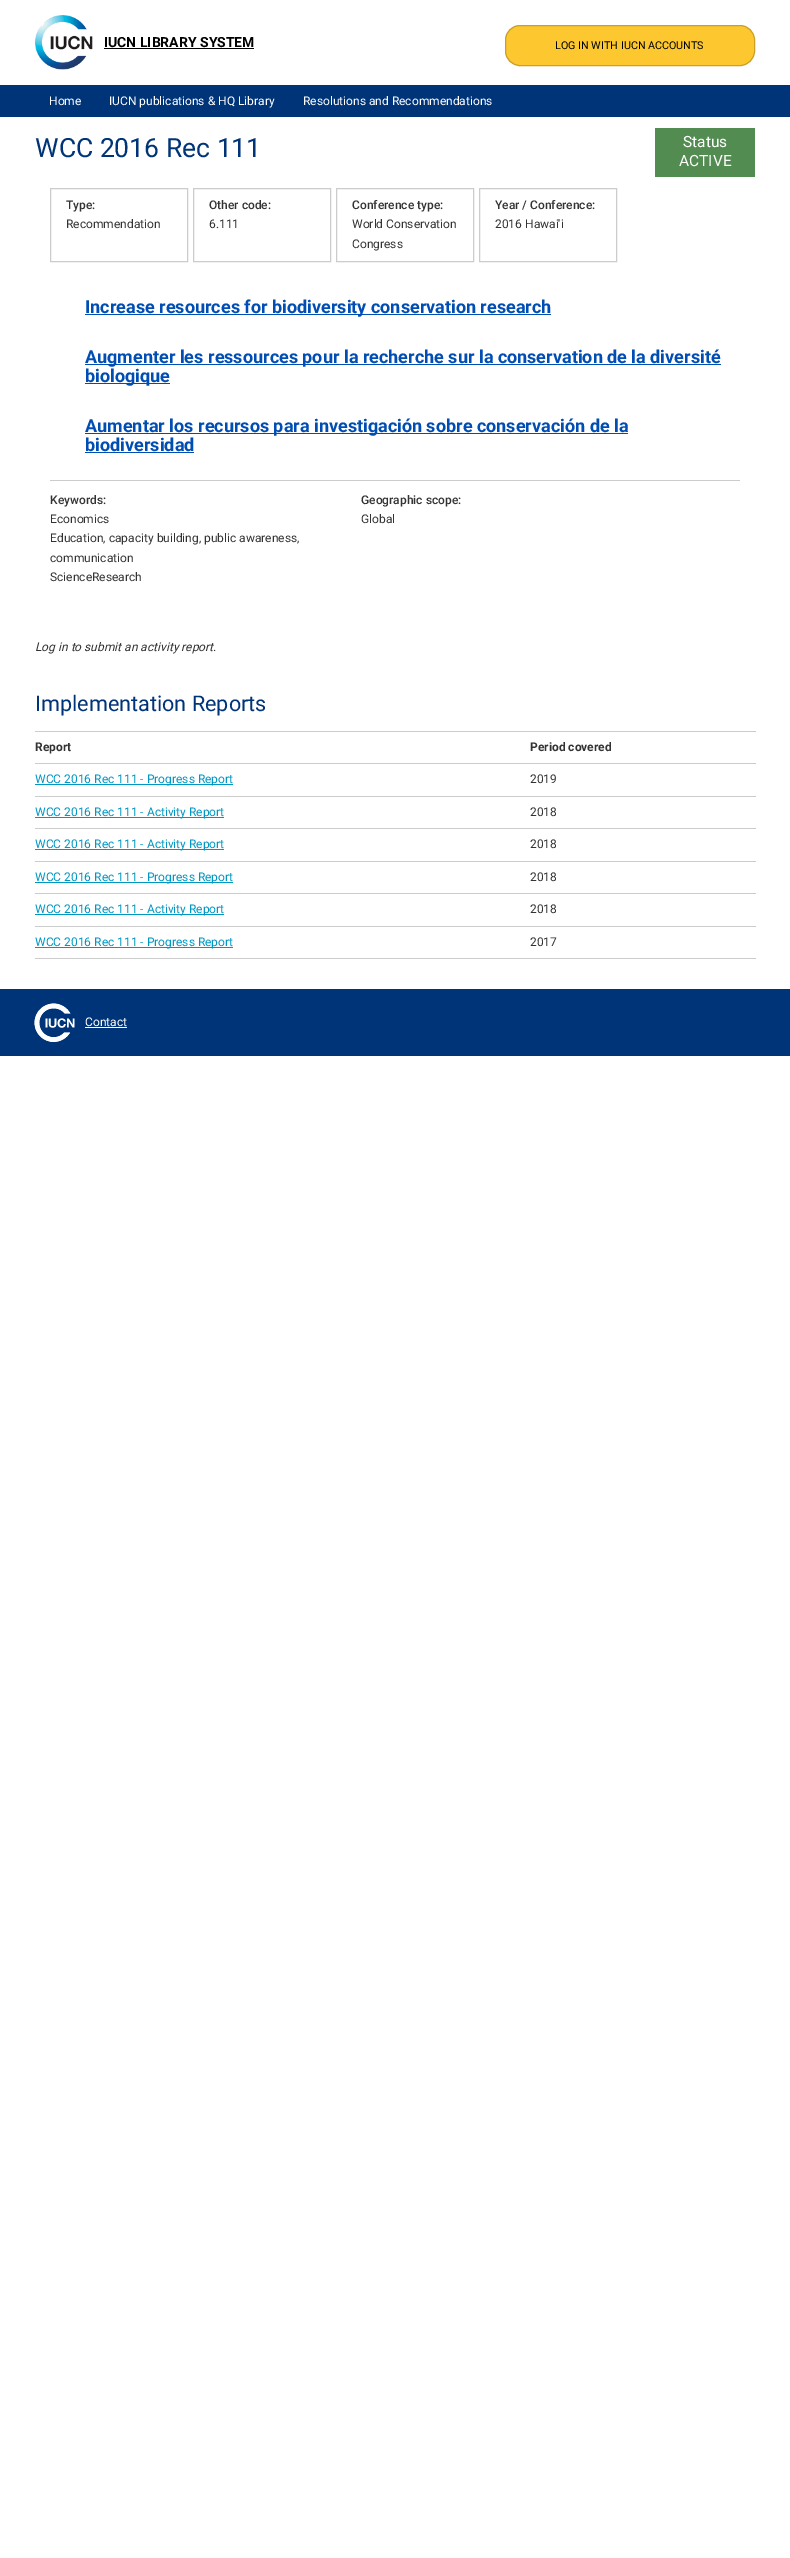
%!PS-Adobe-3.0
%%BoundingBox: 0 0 790 2558
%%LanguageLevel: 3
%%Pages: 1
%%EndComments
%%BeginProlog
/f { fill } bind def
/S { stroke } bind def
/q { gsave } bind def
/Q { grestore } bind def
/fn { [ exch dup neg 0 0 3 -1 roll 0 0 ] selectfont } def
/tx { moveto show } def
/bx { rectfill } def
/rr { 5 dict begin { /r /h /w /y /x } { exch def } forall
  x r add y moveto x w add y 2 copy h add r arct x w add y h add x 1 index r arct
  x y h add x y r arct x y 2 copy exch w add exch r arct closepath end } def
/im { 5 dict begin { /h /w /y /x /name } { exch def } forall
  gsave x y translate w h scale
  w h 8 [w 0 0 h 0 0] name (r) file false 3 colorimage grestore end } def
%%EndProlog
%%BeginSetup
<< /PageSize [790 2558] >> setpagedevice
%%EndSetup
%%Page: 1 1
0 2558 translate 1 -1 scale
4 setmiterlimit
1 setgray
0 0 790 2558 bx
0 0.204 0.471 setrgbcolor
0 85 790 32 bx
(image0.raw) 35 15 58 55 im
/Roboto-Bold 14 fn
0 setgray
(IUCN LIBRARY SYSTEM) 104 47 tx
104 48 150 1 bx
0.992 0.784 0.184 setrgbcolor
505.5 25.5 249 40 14.5 rr q f Q
0.8 0.624 0.149 setrgbcolor
S
/Roboto-Regular 10.75 fn
0 setgray
(LOG IN WITH IUCN ACCOUNTS) 555 49 tx
/Roboto-Regular 12 fn
1 setgray
(Home) 49 105 tx
(IUCN publications & HQ Library) 109 105 tx
(Resolutions and Recommendations) 303 105 tx
0.322 0.549 0.314 setrgbcolor
655 128 100 49 bx
/Roboto-Regular 15.5 fn
1 setgray
(Status) 683 147 tx
(ACTIVE) 679 166 tx
0.8 setgray
50.5 188.5 137 73 rectstroke
/Roboto-Medium 12 fn
0.2 setgray
(Type:) 66 209 tx
/Roboto-Regular 12 fn
(Recommendation) 66 228 tx
0.8 setgray
193.5 188.5 137 73 rectstroke
/Roboto-Medium 12 fn
0.2 setgray
(Other code:) 209 209 tx
/Roboto-Regular 12 fn
(6.111) 209 228 tx
0.8 setgray
336.5 188.5 137 73 rectstroke
/Roboto-Medium 12 fn
0.2 setgray
(Conference type:) 352 209 tx
/Roboto-Regular 12 fn
(World Conservation) 352 228 tx
(Congress) 352 248 tx
0.8 setgray
479.5 188.5 137 73 rectstroke
/Roboto-Medium 12 fn
0.2 setgray
(Year / Conference:) 495 209 tx
/Roboto-Regular 12 fn
(2016 Hawai'i) 495 228 tx
0 0.302 0.702 setrgbcolor
85 314 466 1 bx
/Roboto-Bold 18 fn
(Increase resources for biodiversity conservation research) 85 313 tx
85 364 636 1 bx
(Augmenter les ressources pour la recherche sur la conservation de la diversité) 85 363 tx
85 383 85 1 bx
(biologique) 85 382 tx
85 433 543 1 bx
(Aumentar los recursos para investigación sobre conservación de la) 85 432 tx
(biodiversidad) 85 451 tx
85 452 109 1 bx
0.8 setgray
50 480 690 1 bx
/Roboto-Medium 12 fn
0.2 setgray
(Keywords:) 50 504 tx
/Roboto-Regular 12 fn
(Economics) 50 523 tx
(Education, capacity building, public awareness,) 50 542 tx
(communication) 50 562 tx
(ScienceResearch) 50 581 tx
/Roboto-Medium 12 fn
(Geographic scope:) 361 504 tx
/Roboto-Regular 12 fn
(Global) 361 523 tx
/Roboto-Regular 26.5 fn
0 0.204 0.471 setrgbcolor
(WCC 2016 Rec 111) 35 157 tx
/Roboto-Italic 12 fn
0.2 setgray
(Log in to submit an activity report.) 35 651 tx
/Roboto-Regular 21.6 fn
0 0.204 0.471 setrgbcolor
(Implementation Reports) 35 711 tx
/Roboto-Bold 12 fn
0.2 setgray
(Report) 35 751 tx
0.8 setgray
35 731 721 1 bx
35 763 721 1 bx
0.2 setgray
(Period covered) 530 751 tx
0.8 setgray
35 796 721 1 bx
0 0.596 0.765 setrgbcolor
35 784 198 1 bx
/Roboto-Regular 12 fn
(WCC 2016 Rec 111 - Progress Report) 35 783 tx
0.2 setgray
(2019) 530 783 tx
0.8 setgray
35 828 721 1 bx
0 0.596 0.765 setrgbcolor
35 817 189 1 bx
(WCC 2016 Rec 111 - Activity Report) 35 816 tx
0.2 setgray
(2018) 530 816 tx
0.8 setgray
35 861 721 1 bx
0 0.596 0.765 setrgbcolor
35 849 189 1 bx
(WCC 2016 Rec 111 - Activity Report) 35 848 tx
0.2 setgray
(2018) 530 848 tx
0.8 setgray
35 893 721 1 bx
0 0.596 0.765 setrgbcolor
35 882 198 1 bx
(WCC 2016 Rec 111 - Progress Report) 35 881 tx
0.2 setgray
(2018) 530 881 tx
0.8 setgray
35 926 721 1 bx
0 0.596 0.765 setrgbcolor
35 914 189 1 bx
(WCC 2016 Rec 111 - Activity Report) 35 913 tx
0.2 setgray
(2018) 530 913 tx
0.8 setgray
35 958 721 1 bx
0 0.596 0.765 setrgbcolor
35 947 198 1 bx
(WCC 2016 Rec 111 - Progress Report) 35 946 tx
0.2 setgray
(2017) 530 946 tx
0 0.204 0.471 setrgbcolor
0 989 790 67 bx
(image1.raw) 34 1003 41 39 im
1 setgray
(Contact) 85 1026 tx
85 1027 42 1 bx
showpage
%%EOF
